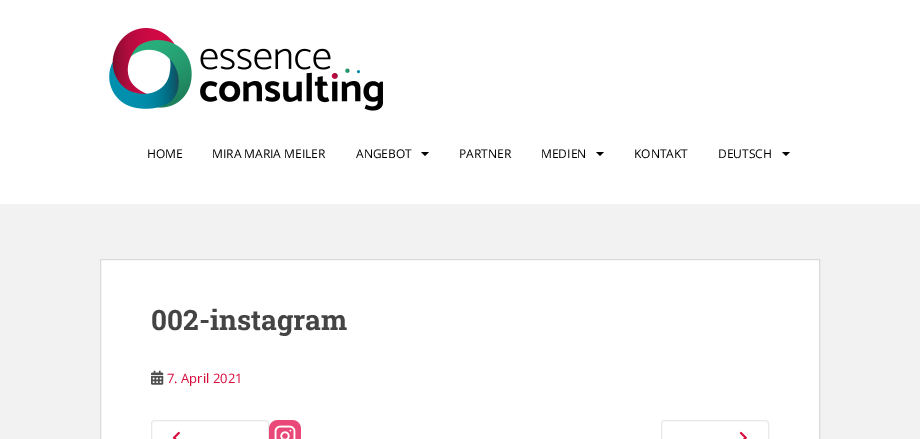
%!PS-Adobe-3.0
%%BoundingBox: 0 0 920 439
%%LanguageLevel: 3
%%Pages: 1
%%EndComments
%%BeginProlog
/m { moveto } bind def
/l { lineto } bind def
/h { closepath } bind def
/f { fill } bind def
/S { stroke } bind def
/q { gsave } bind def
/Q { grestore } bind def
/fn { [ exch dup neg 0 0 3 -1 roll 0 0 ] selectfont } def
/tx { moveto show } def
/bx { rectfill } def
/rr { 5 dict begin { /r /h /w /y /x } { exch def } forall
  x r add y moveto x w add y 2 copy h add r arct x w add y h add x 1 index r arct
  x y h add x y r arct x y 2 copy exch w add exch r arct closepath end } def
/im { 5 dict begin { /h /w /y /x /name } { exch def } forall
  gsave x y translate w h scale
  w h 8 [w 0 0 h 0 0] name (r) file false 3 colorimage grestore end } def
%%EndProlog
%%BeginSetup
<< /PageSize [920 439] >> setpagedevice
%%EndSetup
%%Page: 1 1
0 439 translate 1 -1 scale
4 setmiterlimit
0.949 setgray
0 0 920 439 bx
1 setgray
0 0 920 204 bx
(image0.raw) 109 28 274 83 im
/OpenSans-Regular 12 fn
0 setgray
(HOME) 147 158 tx
(MIRA MARIA MEILER) 212 158 tx
(ANGEBOT) 356 158 tx
421 152 m 429 152 l 425 156 l h f
(PARTNER) 459 158 tx
(MEDIEN) 541 158 tx
596 152 m 604 152 l 600 156 l h f
(KONTAKT) 634 158 tx
(DEUTSCH) 718 158 tx
782 152 m 790 152 l 786 156 l h f
1 setgray
100.5 259.5 m 819.5 259.5 l 819.5 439.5 l 100.5 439.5 l h q f Q
0.855 setgray
S
/RobotoSlab-Bold 28 fn
0.267 setgray
(002-instagram) 151 330 tx
(image1.raw) 151 370 13 15 im
/OpenSans-Regular 13 fn
0.847 0.051 0.235 setrgbcolor
(7. April 2021) 167 383 tx
0.91 setgray
151.5 420.5 117 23 3.5 rr S
(image2.raw) 172 431 8 8 im
661.5 420.5 107 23 3.5 rr S
(image3.raw) 739 431 8 8 im
(image4.raw) 269 420 32 19 im
showpage
%%EOF
